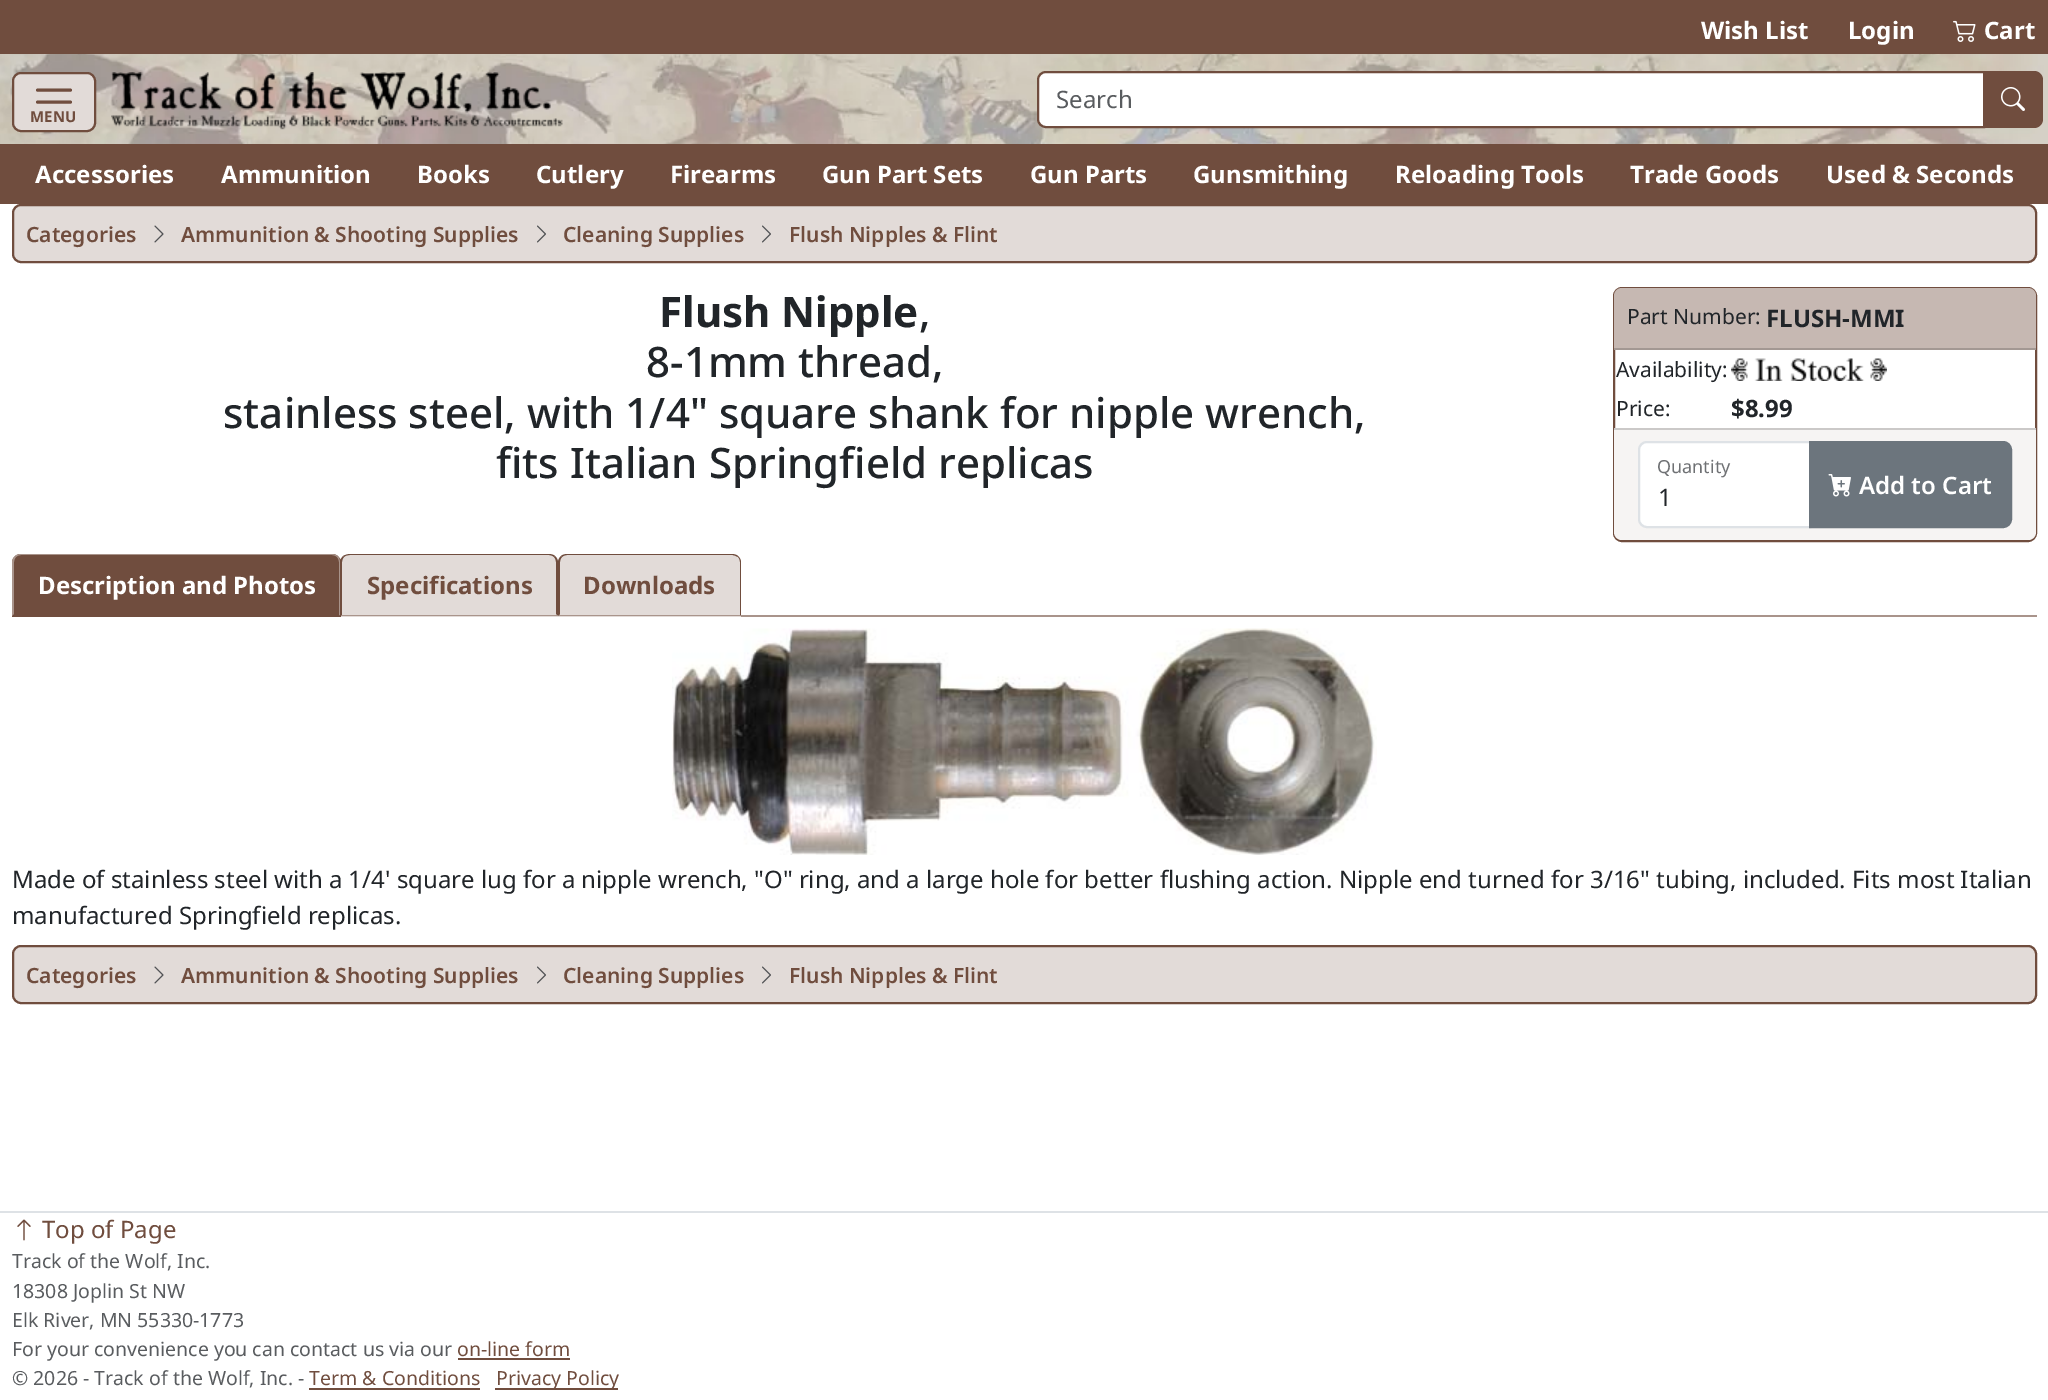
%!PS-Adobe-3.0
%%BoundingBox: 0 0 2048 1400
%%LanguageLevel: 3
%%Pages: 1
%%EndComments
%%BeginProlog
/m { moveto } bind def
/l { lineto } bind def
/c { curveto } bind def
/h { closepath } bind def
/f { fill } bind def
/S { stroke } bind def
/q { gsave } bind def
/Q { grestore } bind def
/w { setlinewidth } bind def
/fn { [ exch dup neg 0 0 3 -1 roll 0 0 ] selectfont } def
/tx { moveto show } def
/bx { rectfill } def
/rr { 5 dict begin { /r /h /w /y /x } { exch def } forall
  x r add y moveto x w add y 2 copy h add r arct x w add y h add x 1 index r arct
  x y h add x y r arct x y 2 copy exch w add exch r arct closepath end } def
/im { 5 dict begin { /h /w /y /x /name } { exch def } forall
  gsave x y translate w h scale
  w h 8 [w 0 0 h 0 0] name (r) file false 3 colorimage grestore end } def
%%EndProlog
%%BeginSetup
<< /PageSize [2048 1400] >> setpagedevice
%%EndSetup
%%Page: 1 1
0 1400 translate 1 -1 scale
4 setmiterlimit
1 setgray
0 0 2048 1400 bx
0.439 0.302 0.243 setrgbcolor
0 0 2048 54 bx
/NotoSans-Bold 24 fn
1 setgray
(Wish List) 1701 39 tx
(Login) 1848 39 tx
(image0.raw) 1953 20 23 22 im
(Cart) 1984 39 tx
(image1.raw) 0 54 2048 90 im
1046 72 m 1984 72 l 1984 127 l 1046 127 l 1041.5 127 1038 123.5 1038 119 c 1038 80 l 1038 75.5 1041.5 72 1046 72 c h q f Q
0.439 0.302 0.243 setrgbcolor
2 w
S
/NotoSans-Regular 24 fn
0.349 0.361 0.373 setrgbcolor
(Search) 1056 108 tx
0.439 0.302 0.243 setrgbcolor
1983 71 m 2034 71 l 2039 71 2043 75 2043 80 c 2043 119 l 2043 124 2039 128 2034 128 c 1983 128 l h f
(image2.raw) 2001 87 24 24 im
0.886 0.859 0.847 setrgbcolor
13 73 82 58 8 rr q f Q
0.439 0.302 0.243 setrgbcolor
S
3 w
1 setlinecap
37.5 90 m 70.5 90 l 37.5 102 m 70.5 102 l 37.5 114 m 70.5 114 l S
0.886 0.859 0.847 setrgbcolor
30 108 47 15 7.5 rr f
/NotoSans-Bold 15 fn
0.439 0.302 0.243 setrgbcolor
(MENU) 30 122 tx
(image3.raw) 111 72 452 58 im
0 144 2048 60 bx
/NotoSans-Bold 24 fn
1 setgray
(Accessories) 35 183 tx
(Ammunition) 221 183 tx
(Books) 417 183 tx
(Cutlery) 536 183 tx
(Firearms) 670 183 tx
(Gun Part Sets) 822 183 tx
(Gun Parts) 1030 183 tx
(Gunsmithing) 1193 183 tx
(Reloading Tools) 1395 183 tx
(Trade Goods) 1630 183 tx
(Used & Seconds) 1826 183 tx
0.886 0.859 0.847 setrgbcolor
13 205 2023 57 8 rr q f Q
0.439 0.302 0.243 setrgbcolor
2 w
0 setlinecap
S
/NotoSans-SemiBold 21 fn
(Categories) 26 242 tx
(image4.raw) 154 225 10 18 im
(Ammunition & Shooting Supplies) 181 242 tx
(image5.raw) 537 225 9 18 im
(Cleaning Supplies) 563 242 tx
(image5.raw) 762 225 9 18 im
(Flush Nipples & Flint) 789 242 tx
/NotoSans-Bold 42 fn
0.129 0.145 0.161 setrgbcolor
(Flush Nipple) 659 327 tx
/NotoSans-Medium 42 fn
(,) 919 327 tx
(8-1mm thread,) 646 377 tx
(stainless steel, with 1/4" square shank for nipple wrench,) 223 428 tx
(fits Italian Springfield replicas) 496 478 tx
0.439 0.302 0.243 setrgbcolor
1614 288 422 253 8 rr S
0.776 0.722 0.698 setrgbcolor
1622 288 m 2028 288 l 2032.5 288 2036 291.5 2036 296 c 2036 350 l 1614 350 l 1614 296 l 1614 291.5 1617.5 288 1622 288 c h f
0.639 0.596 0.576 setrgbcolor
1614 348 422 2 bx
/NotoSans-Regular 21 fn
0.129 0.145 0.161 setrgbcolor
(Part Number:) 1627 324 tx
/NotoSans-Bold 24 fn
(FLUSH-MMI) 1766 327 tx
/NotoSans-Regular 21 fn
(Availability:) 1616 377 tx
(image6.raw) 1731 358 156 23 im
(Price:) 1616 416 tx
/NotoSans-Bold 24 fn
($8.99) 1731 417 tx
0.965 0.957 0.953 setrgbcolor
1614 428 m 2036 428 l 2036 532 l 2036 536.5 2032.5 540 2028 540 c 1622 540 l 1617.5 540 1614 536.5 1614 532 c h f
0.796 0.788 0.784 setrgbcolor
1614 428 422 2 bx
1 setgray
1647 442 m 1810 442 l 1810 527 l 1647 527 l 1642.5 527 1639 523.5 1639 519 c 1639 450 l 1639 445.5 1642.5 442 1647 442 c h q f Q
0.871 0.886 0.902 setrgbcolor
S
/NotoSans-Regular 18 fn
0.435 0.443 0.455 setrgbcolor
(Quantity) 1657 473 tx
0.424 0.459 0.49 setrgbcolor
1810 442 m 2003 442 l 2007.5 442 2011 445.5 2011 450 c 2011 519 l 2011 523.5 2007.5 527 2003 527 c 1810 527 l h q f Q
S
(image7.raw) 1828 474 23 23 im
/NotoSans-SemiBold 24 fn
1 setgray
(Add to Cart) 1859 494 tx
/NotoSans-Regular 24 fn
0.129 0.145 0.161 setrgbcolor
(1) 1658 506 tx
0.663 0.58 0.545 setrgbcolor
741 615 1296 2 bx
0.439 0.302 0.243 setrgbcolor
21 554 m 332 554 l 337 554 341 558 341 563 c 341 617 l 12 617 l 12 563 l 12 558 16 554 21 554 c h f
0.663 0.58 0.545 setrgbcolor
21 554 m 19 554 16 555 15 556 c 16 557 l 17 556 19 555 21 555 c 332 555 l 334 555 336 556 337 557 c 338 556 l 336 555 334 554 332 554 c h f
340 616 m 340 562 l 340 560 339 558 338 556 c 337 557 l 338 558 339 560 339 562 c 339 615 l h f
0.439 0.302 0.243 setrgbcolor
340 616 m 339 615 l 14 615 l 14 614 l 12 616 l h f
0.663 0.58 0.545 setrgbcolor
12 562 m 12 616 l 14 614 l 14 562 l 14 560 15 558 16 557 c 15 556 l 13 558 12 560 12 562 c h f
/NotoSans-Bold 24 fn
1 setgray
(Description and Photos) 38 594 tx
0.886 0.859 0.847 setrgbcolor
350 554 m 549 554 l 554 554 558 558 558 563 c 558 617 l 341 617 l 341 563 l 341 558 345 554 350 554 c h f
0.439 0.302 0.243 setrgbcolor
350 554 m 348 554 345 555 343 556 c 344 557 l 345 556 347 555 350 555 c 549 555 l 551 555 553 556 554 557 c 555 556 l 554 555 551 554 549 554 c h f
555 556 m 557 558 558 560 558 562 c 558 616 l 556 614 l 556 562 l 556 560 555 558 554 557 c h f
0.663 0.58 0.545 setrgbcolor
558 616 m 341 616 l 342 615 l 556 615 l 556 614 l h f
0.439 0.302 0.243 setrgbcolor
340 560 m 343 556 l 344 557 l 343 558 342 560 342 562 c 342 615 l 340 616 l h f
(Specifications) 367 594 tx
0.886 0.859 0.847 setrgbcolor
567 554 m 732 554 l 737 554 741 558 741 563 c 741 617 l 558 617 l 558 563 l 558 558 562 554 567 554 c h f
0.439 0.302 0.243 setrgbcolor
567 554 m 565 554 562 555 561 556 c 562 557 l 563 556 565 555 567 555 c 732 555 l 734 555 736 556 738 557 c 738 556 l 737 555 734 554 732 554 c h f
738 556 m 740 558 741 560 741 562 c 741 616 l 740 615 l 740 562 l 740 560 739 558 738 557 c h f
0.663 0.58 0.545 setrgbcolor
740 616 m 558 616 l 560 614 l 560 615 l 740 615 l h f
0.439 0.302 0.243 setrgbcolor
558 562 m 558 616 l 560 614 l 560 562 l 560 560 561 558 562 557 c 561 556 l 559 558 558 560 558 562 c h f
(Downloads) 583 594 tx
(image8.raw) 672 628 705 227 im
/NotoSans-Regular 24 fn
0.129 0.145 0.161 setrgbcolor
(Made of stainless steel with a 1/4' square lug for a nipple wrench, "O" ring, and a large hole for better flushing action. Nipple end turned for 3/16" tubing, included. Fits most Italian) 12 888 tx
(manufactured Springfield replicas.) 12 924 tx
0.886 0.859 0.847 setrgbcolor
13 946 2023 57 8 rr q f Q
0.439 0.302 0.243 setrgbcolor
S
/NotoSans-SemiBold 21 fn
(Categories) 26 983 tx
(image4.raw) 154 966 10 18 im
(Ammunition & Shooting Supplies) 181 983 tx
(image5.raw) 537 966 9 18 im
(Cleaning Supplies) 563 983 tx
(image5.raw) 762 966 9 18 im
(Flush Nipples & Flint) 789 983 tx
0.871 0.886 0.902 setrgbcolor
0 1211 2048 2 bx
(image9.raw) 17 1219 14 22 im
/NotoSans-Regular 24 fn
0.439 0.302 0.243 setrgbcolor
(Top of Page) 42 1238 tx
/NotoSans-Regular 19.5 fn
0.349 0.361 0.373 setrgbcolor
(Track of the Wolf, Inc.) 12 1268 tx
(18308 Joplin St NW) 12 1298 tx
(Elk River, MN 55330-1773) 12 1327 tx
(For your convenience you can contact us via our) 12 1356 tx
0.439 0.302 0.243 setrgbcolor
(on-line form) 457 1356 tx
458 1358 112 2 bx
0.349 0.361 0.373 setrgbcolor
(© 2026 - Track of the Wolf, Inc. -) 12 1385 tx
0.439 0.302 0.243 setrgbcolor
(Term & Conditions) 309 1385 tx
309 1388 171 2 bx
495 1388 123 2 bx
(Privacy Policy) 496 1385 tx
showpage
%%EOF
